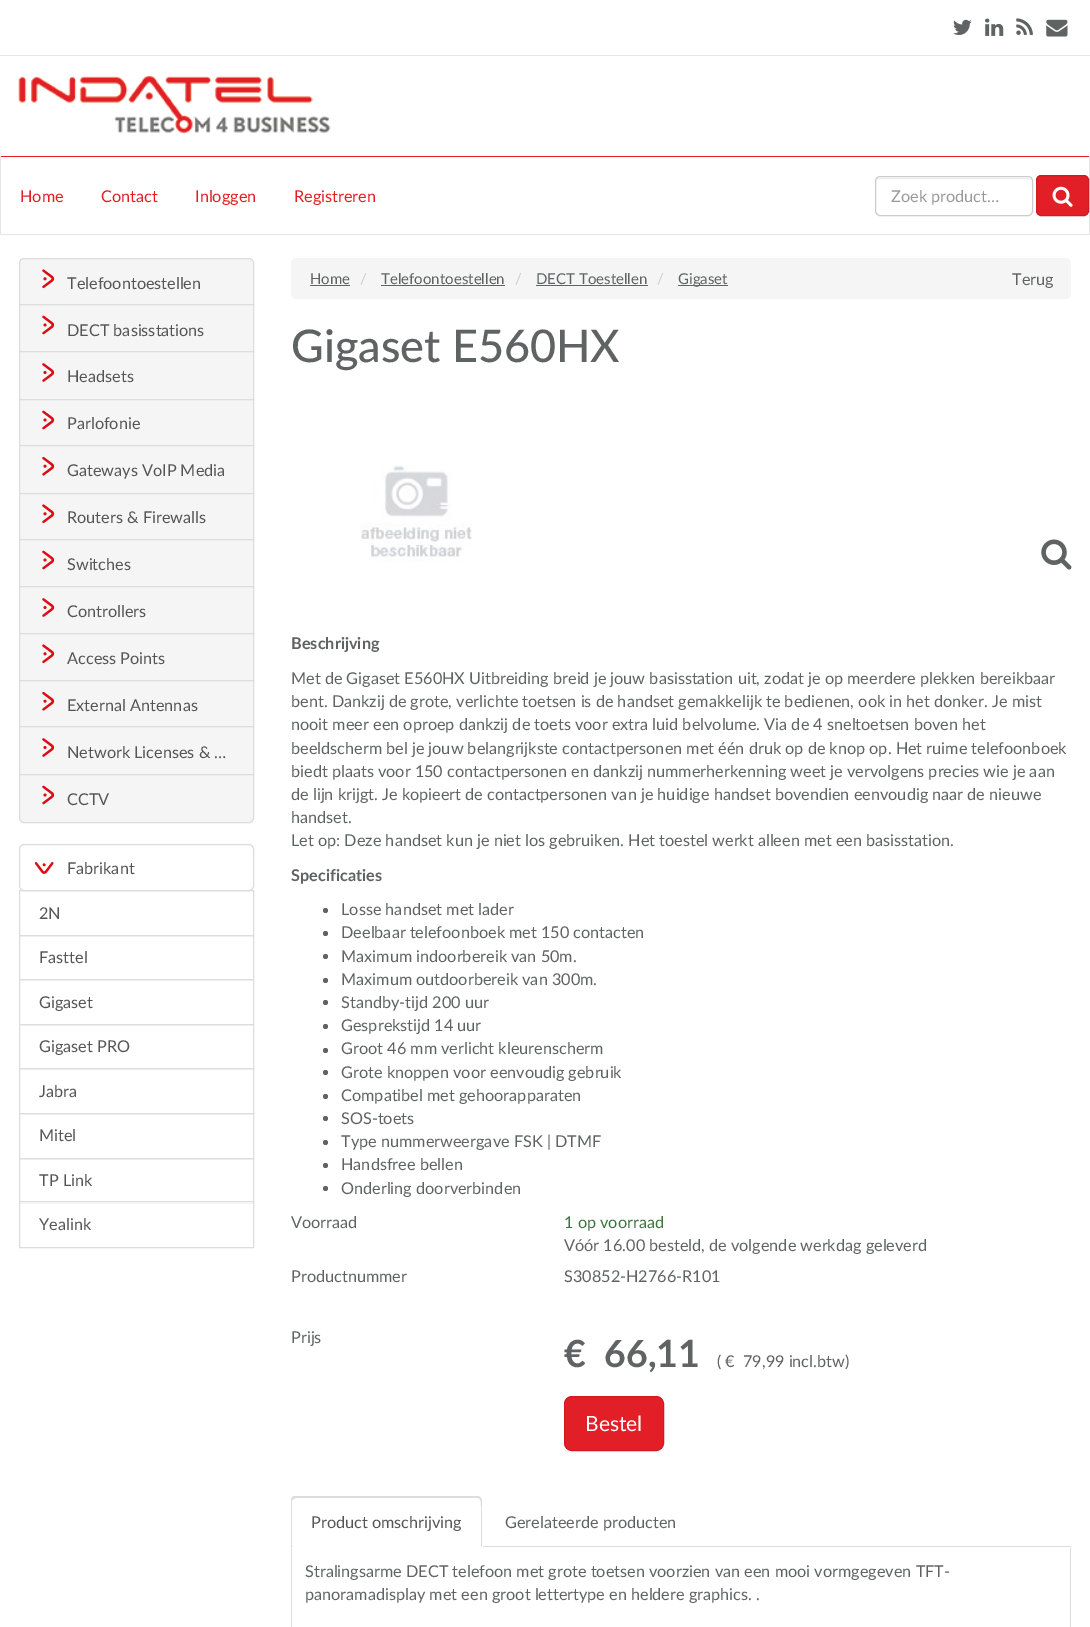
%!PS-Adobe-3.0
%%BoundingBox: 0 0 1090 1627
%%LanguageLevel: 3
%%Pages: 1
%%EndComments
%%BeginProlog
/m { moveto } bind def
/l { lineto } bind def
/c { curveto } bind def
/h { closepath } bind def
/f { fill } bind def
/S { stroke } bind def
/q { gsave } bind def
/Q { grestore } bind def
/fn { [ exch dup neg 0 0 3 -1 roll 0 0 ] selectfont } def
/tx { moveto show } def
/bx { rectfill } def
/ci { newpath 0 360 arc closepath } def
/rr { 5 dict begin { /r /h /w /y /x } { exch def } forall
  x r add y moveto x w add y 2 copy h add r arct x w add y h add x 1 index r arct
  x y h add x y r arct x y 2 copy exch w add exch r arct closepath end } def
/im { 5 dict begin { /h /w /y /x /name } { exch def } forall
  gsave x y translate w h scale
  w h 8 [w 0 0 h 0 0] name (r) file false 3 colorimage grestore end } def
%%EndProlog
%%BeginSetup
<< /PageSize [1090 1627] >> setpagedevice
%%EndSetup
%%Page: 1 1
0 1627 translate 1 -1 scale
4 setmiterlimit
1 setgray
0 0 1090 1627 bx
0.894 setgray
0 55 1090 1 bx
(image0.raw) 953 19 19 16 im
(image1.raw) 985 18 19 18 im
(image2.raw) 1016 18 17 17 im
(image3.raw) 1046 19 22 18 im
(image4.raw) 18 76 313 58 im
0.886 0.122 0.149 setrgbcolor
0 156 1090 1 bx
0.894 setgray
1089 156 1 79 bx
0 234 1090 1 bx
0 156 1 79 bx
/Lato-Regular 16.25 fn
0.886 0.122 0.149 setrgbcolor
(Home) 20 202 tx
(Contact) 101 202 tx
(Inloggen) 195 202 tx
(Registreren) 294 202 tx
0.925 setgray
880 179 m 1028 179 l 1030 180 l 1030 179 1028 178 1027 178 c 880 178 l 878 178 876 180 876 182 c 876 180 878 179 880 179 c h f
0.8 setgray
875.5 176.5 157 39 4.5 rr S
0.6 setgray
(Zoek product…) 891 202 tx
0.886 0.122 0.149 setrgbcolor
1036.5 175.5 52 40 4.5 rr q f Q
0.804 0.106 0.129 setrgbcolor
S
(image5.raw) 1052 186 21 21 im
0.961 setgray
24 258.5 m 249 258.5 l 251.5 258.5 253.5 260.5 253.5 263 c 253.5 304.5 l 19.5 304.5 l 19.5 263 l 19.5 260.5 21.5 258.5 24 258.5 c h q f Q
0.867 setgray
S
(image6.raw) 42 269 13 20 im
0.333 setgray
(Telefoontoestellen) 67 289 tx
0.961 setgray
20 305 233 46 bx
0.867 setgray
19.5 304.5 234 48 rectstroke
(image7.raw) 42 315 13 20 im
0.333 setgray
(DECT basisstations) 67 336 tx
0.961 setgray
19.5 351.5 m 253.5 351.5 l 253.5 399.5 l 19.5 399.5 l h q f Q
0.867 setgray
S
(image8.raw) 42 363 13 19 im
0.333 setgray
(Headsets) 67 382 tx
0.961 setgray
19.5 399.5 m 253.5 399.5 l 253.5 445.5 l 19.5 445.5 l h q f Q
0.867 setgray
S
(image7.raw) 42 410 13 20 im
0.333 setgray
(Parlofonie) 67 429 tx
0.961 setgray
19.5 445.5 m 253.5 445.5 l 253.5 493.5 l 19.5 493.5 l h q f Q
0.867 setgray
S
(image9.raw) 42 456 13 20 im
0.333 setgray
(Gateways VoIP Media) 67 476 tx
0.961 setgray
19.5 493.5 m 253.5 493.5 l 253.5 539.5 l 19.5 539.5 l h q f Q
0.867 setgray
S
(image6.raw) 42 504 13 20 im
0.333 setgray
(Routers & Firewalls) 67 523 tx
0.961 setgray
20 540 233 46 bx
0.867 setgray
19.5 539.5 234 48 rectstroke
(image7.raw) 42 550 13 20 im
0.333 setgray
(Switches) 67 570 tx
0.961 setgray
19.5 586.5 m 253.5 586.5 l 253.5 633.5 l 19.5 633.5 l h q f Q
0.867 setgray
S
(image8.raw) 42 598 13 19 im
0.333 setgray
(Controllers) 67 617 tx
0.961 setgray
19.5 633.5 m 253.5 633.5 l 253.5 680.5 l 19.5 680.5 l h q f Q
0.867 setgray
S
(image6.raw) 42 644 13 20 im
0.333 setgray
(Access Points) 67 664 tx
0.961 setgray
20 681 233 45 bx
0.867 setgray
19.5 680.5 234 47 rectstroke
(image9.raw) 42 691 13 20 im
0.333 setgray
(External Antennas) 67 711 tx
0.961 setgray
19.5 726.5 m 253.5 726.5 l 253.5 774.5 l 19.5 774.5 l h q f Q
0.867 setgray
S
(image8.raw) 42 738 13 19 im
0.333 setgray
(Network Licenses & …) 67 758 tx
0.961 setgray
19.5 774.5 m 253.5 774.5 l 253.5 818 l 253.5 820.5 251.5 822.5 249 822.5 c 24 822.5 l 21.5 822.5 19.5 820.5 19.5 818 c h q f Q
0.867 setgray
S
(image7.raw) 42 785 13 20 im
0.333 setgray
(CCTV) 67 805 tx
0.867 setgray
19.5 844.5 234 46 4.5 rr S
(image10.raw) 35 862 19 12 im
0.333 setgray
(Fabrikant) 67 874 tx
0.867 setgray
19.5 890.5 234 45 rectstroke
0.333 setgray
(2N) 39 919 tx
0.867 setgray
19.5 935.5 234 44 rectstroke
0.333 setgray
(Fasttel) 39 963 tx
0.867 setgray
19.5 979.5 234 45 rectstroke
0.333 setgray
(Gigaset) 39 1008 tx
0.867 setgray
19.5 1024.5 234 44 rectstroke
0.333 setgray
(Gigaset PRO) 39 1052 tx
0.867 setgray
19.5 1068.5 234 45 rectstroke
0.333 setgray
(Jabra) 39 1097 tx
0.867 setgray
19.5 1113.5 234 45 rectstroke
0.333 setgray
(Mitel) 39 1141 tx
0.867 setgray
19.5 1158.5 234 44 rectstroke
0.333 setgray
(TP Link) 39 1186 tx
1 setgray
20 1202 233 1 bx
0.867 setgray
19.5 1201.5 234 46 rectstroke
0.333 setgray
(Yealink) 39 1230 tx
0.961 setgray
291 258 780 41 5 rr f
/Lato-Regular 15 fn
0.373 0.388 0.388 setrgbcolor
(Home) 310 284 tx
310 285 40 1 bx
0.8 setgray
(/) 360 284 tx
0.373 0.388 0.388 setrgbcolor
(Telefoontoestellen) 381 284 tx
381 285 124 1 bx
0.8 setgray
(/) 515 284 tx
0.373 0.388 0.388 setrgbcolor
(DECT Toestellen) 536 284 tx
536 285 112 1 bx
0.8 setgray
(/) 657 284 tx
0.373 0.388 0.388 setrgbcolor
678 285 50 1 bx
(Gigaset) 678 284 tx
/Lato-Regular 16.25 fn
(Terug) 1012 285 tx
/Lato-Medium 45 fn
(Gigaset E560HX) 291 362 tx
(image11.raw) 361 465 111 97 im
(image12.raw) 1041 539 31 31 im
/Lato-Bold 16.25 fn
(Beschrijving) 291 649 tx
/Lato-Regular 16.25 fn
(Met de Gigaset E560HX Uitbreiding breid je jouw basisstation uit, zodat je op meerdere plekken bereikbaar) 291 684 tx
(bent. Dankzij de grote, verlichte toetsen is de handset gemakkelijk te bedienen, ook in het donker. Je mist) 291 707 tx
(nooit meer een oproep dankzij de toets voor extra luid belvolume. Via de 4 sneltoetsen boven het) 291 730 tx
(beeldscherm bel je jouw belangrijkste contactpersonen met één druk op de knop op. Het ruime telefoonboek) 291 754 tx
(biedt plaats voor 150 contactpersonen en dankzij nummerherkenning weet je vervolgens precies wie je aan) 291 777 tx
(de lijn krijgt. Je kopieert de contactpersonen van je huidige handset bovendien eenvoudig naar de nieuwe) 291 800 tx
(handset.) 291 823 tx
(Let op: Deze handset kun je niet los gebruiken. Het toestel werkt alleen met een basisstation.) 291 846 tx
/Lato-Bold 16.25 fn
(Specificaties) 291 881 tx
325.5 910.5 2.5 ci f
/Lato-Regular 16.25 fn
(Losse handset met lader) 341 915 tx
325.5 933.5 2.5 ci f
(Deelbaar telefoonboek met 150 contacten) 341 938 tx
325.5 956.5 2.5 ci f
(Maximum indoorbereik van 50m.) 341 962 tx
325.5 980.5 2.5 ci f
(Maximum outdoorbereik van 300m.) 341 985 tx
325.5 1002.5 2.5 ci f
(Standby-tijd 200 uur) 341 1008 tx
325.5 1026.5 2.5 ci f
(Gesprekstijd 14 uur) 341 1031 tx
325.5 1050.5 2.5 ci f
(Groot 46 mm verlicht kleurenscherm) 341 1054 tx
325.5 1072.5 2.5 ci f
(Grote knoppen voor eenvoudig gebruik) 341 1078 tx
325.5 1096.5 2.5 ci f
(Compatibel met gehoorapparaten) 341 1101 tx
325.5 1118.5 2.5 ci f
(SOS-toets) 341 1124 tx
325.5 1142.5 2.5 ci f
(Type nummerweergave FSK | DTMF) 341 1147 tx
325.5 1165.5 2.5 ci f
(Handsfree bellen) 341 1170 tx
325.5 1188.5 2.5 ci f
(Onderling doorverbinden) 341 1194 tx
(Voorraad) 291 1228 tx
0.235 0.463 0.239 setrgbcolor
(1 op voorraad) 564 1228 tx
0.373 0.388 0.388 setrgbcolor
(Vóór 16.00 besteld, de volgende werkdag geleverd) 564 1251 tx
(Productnummer) 291 1282 tx
(S30852-H2766-R101) 564 1282 tx
(Prijs) 291 1343 tx
/Lato-Bold 37.5 fn
(€) 564 1367 tx
(66,11) 604 1367 tx
/Lato-Regular 16.25 fn
(\( €) 717 1367 tx
(79,99 incl.btw\)) 743 1367 tx
0.886 0.122 0.149 setrgbcolor
564.5 1396.5 99 54 7.5 rr q f Q
0.804 0.106 0.129 setrgbcolor
S
/Lato-Regular 21 fn
1 setgray
(Bestel) 585 1431 tx
0.867 setgray
483 1546 588 1 bx
296 1498 m 294 1499 l 292 1497 l 294 1496 l 479 1496 l 481 1498 l 480 1499 l 478 1498 l h f
481 1498 m 482 1499 482 1500 482 1501 c 482 1547 l 481 1546 l 481 1540 482 1500 480 1499 c h f
291 1548 m 291 1499 l 292 1497 l 294 1499 l 292 1500 l 292 1546 l 293 1546 l h f
/Lato-Regular 16.25 fn
0.333 setgray
(Product omschrijving) 311 1528 tx
0.373 0.388 0.388 setrgbcolor
(Gerelateerde producten) 505 1528 tx
0.867 setgray
1070 1548 1 79 bx
291 1548 1 79 bx
0.373 0.388 0.388 setrgbcolor
(Stralingsarme DECT telefoon met grote toetsen voorzien van een mooi vormgegeven TFT-) 305 1577 tx
(panoramadisplay met een groot lettertype en heldere graphics. .) 305 1600 tx
showpage
%%EOF
